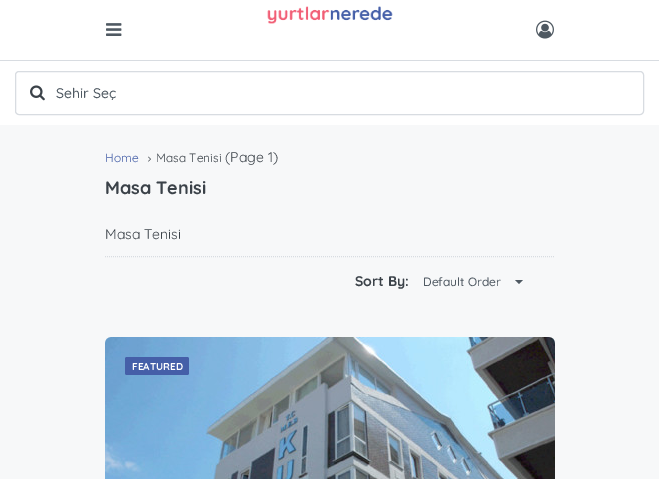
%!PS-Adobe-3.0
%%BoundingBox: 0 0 659 479
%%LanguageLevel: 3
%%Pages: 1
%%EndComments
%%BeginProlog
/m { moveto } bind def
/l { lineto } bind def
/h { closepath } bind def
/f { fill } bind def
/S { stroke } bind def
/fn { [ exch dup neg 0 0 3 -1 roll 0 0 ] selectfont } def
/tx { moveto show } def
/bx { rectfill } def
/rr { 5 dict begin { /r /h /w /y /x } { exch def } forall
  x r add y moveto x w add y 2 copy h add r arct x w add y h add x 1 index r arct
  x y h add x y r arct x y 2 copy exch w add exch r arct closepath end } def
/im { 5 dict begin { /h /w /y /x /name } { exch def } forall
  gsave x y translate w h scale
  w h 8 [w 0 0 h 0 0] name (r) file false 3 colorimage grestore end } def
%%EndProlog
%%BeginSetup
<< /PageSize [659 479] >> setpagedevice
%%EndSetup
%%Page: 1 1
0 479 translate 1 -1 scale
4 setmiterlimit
0.969 0.973 0.976 setrgbcolor
0 0 659 479 bx
1 setgray
0 0 659 60 bx
0.847 0.863 0.882 setrgbcolor
0 60 659 1 bx
(image0.raw) 267 6 126 18 im
(image1.raw) 106 23 16 13 im
(image2.raw) 536 20 18 19 im
1 setgray
0 61 659 64 bx
0.847 0.863 0.882 setrgbcolor
15.5 71.5 628 43 3.5 rr S
(image3.raw) 30 85 15 16 im
/Quicksand-Medium 14 fn
0.31 0.349 0.384 setrgbcolor
(Sehir Seç) 56 98 tx
/Quicksand-Regular 12 fn
0.271 0.373 0.659 setrgbcolor
(Home) 105 162 tx
(image4.raw) 148 156 3 6 im
0.231 0.259 0.286 setrgbcolor
(Masa Tenisi) 156 162 tx
/Quicksand-Regular 14 fn
(\(Page 1\)) 225 162 tx
/Quicksand-Bold 18 fn
(Masa Tenisi) 105 194 tx
/Quicksand-Regular 14 fn
(Masa Tenisi) 105 239 tx
0.847 0.863 0.882 setrgbcolor
[1 1] 0 setdash
105 256.5 m 555 256.5 l S
/Quicksand-Bold 14 fn
0.231 0.259 0.286 setrgbcolor
(Sort By:) 355 286 tx
/Quicksand-Medium 12 fn
0.31 0.349 0.384 setrgbcolor
(Default Order) 423 286 tx
515 280 m 523 280 l 519 284 l h f
(image5.raw) 105 337 450 142 im
0.271 0.373 0.659 setrgbcolor
125 357 64 18 2 rr f
/Quicksand-Bold 10 fn
1 setgray
(FEATURED) 132 370 tx
showpage
%%EOF
